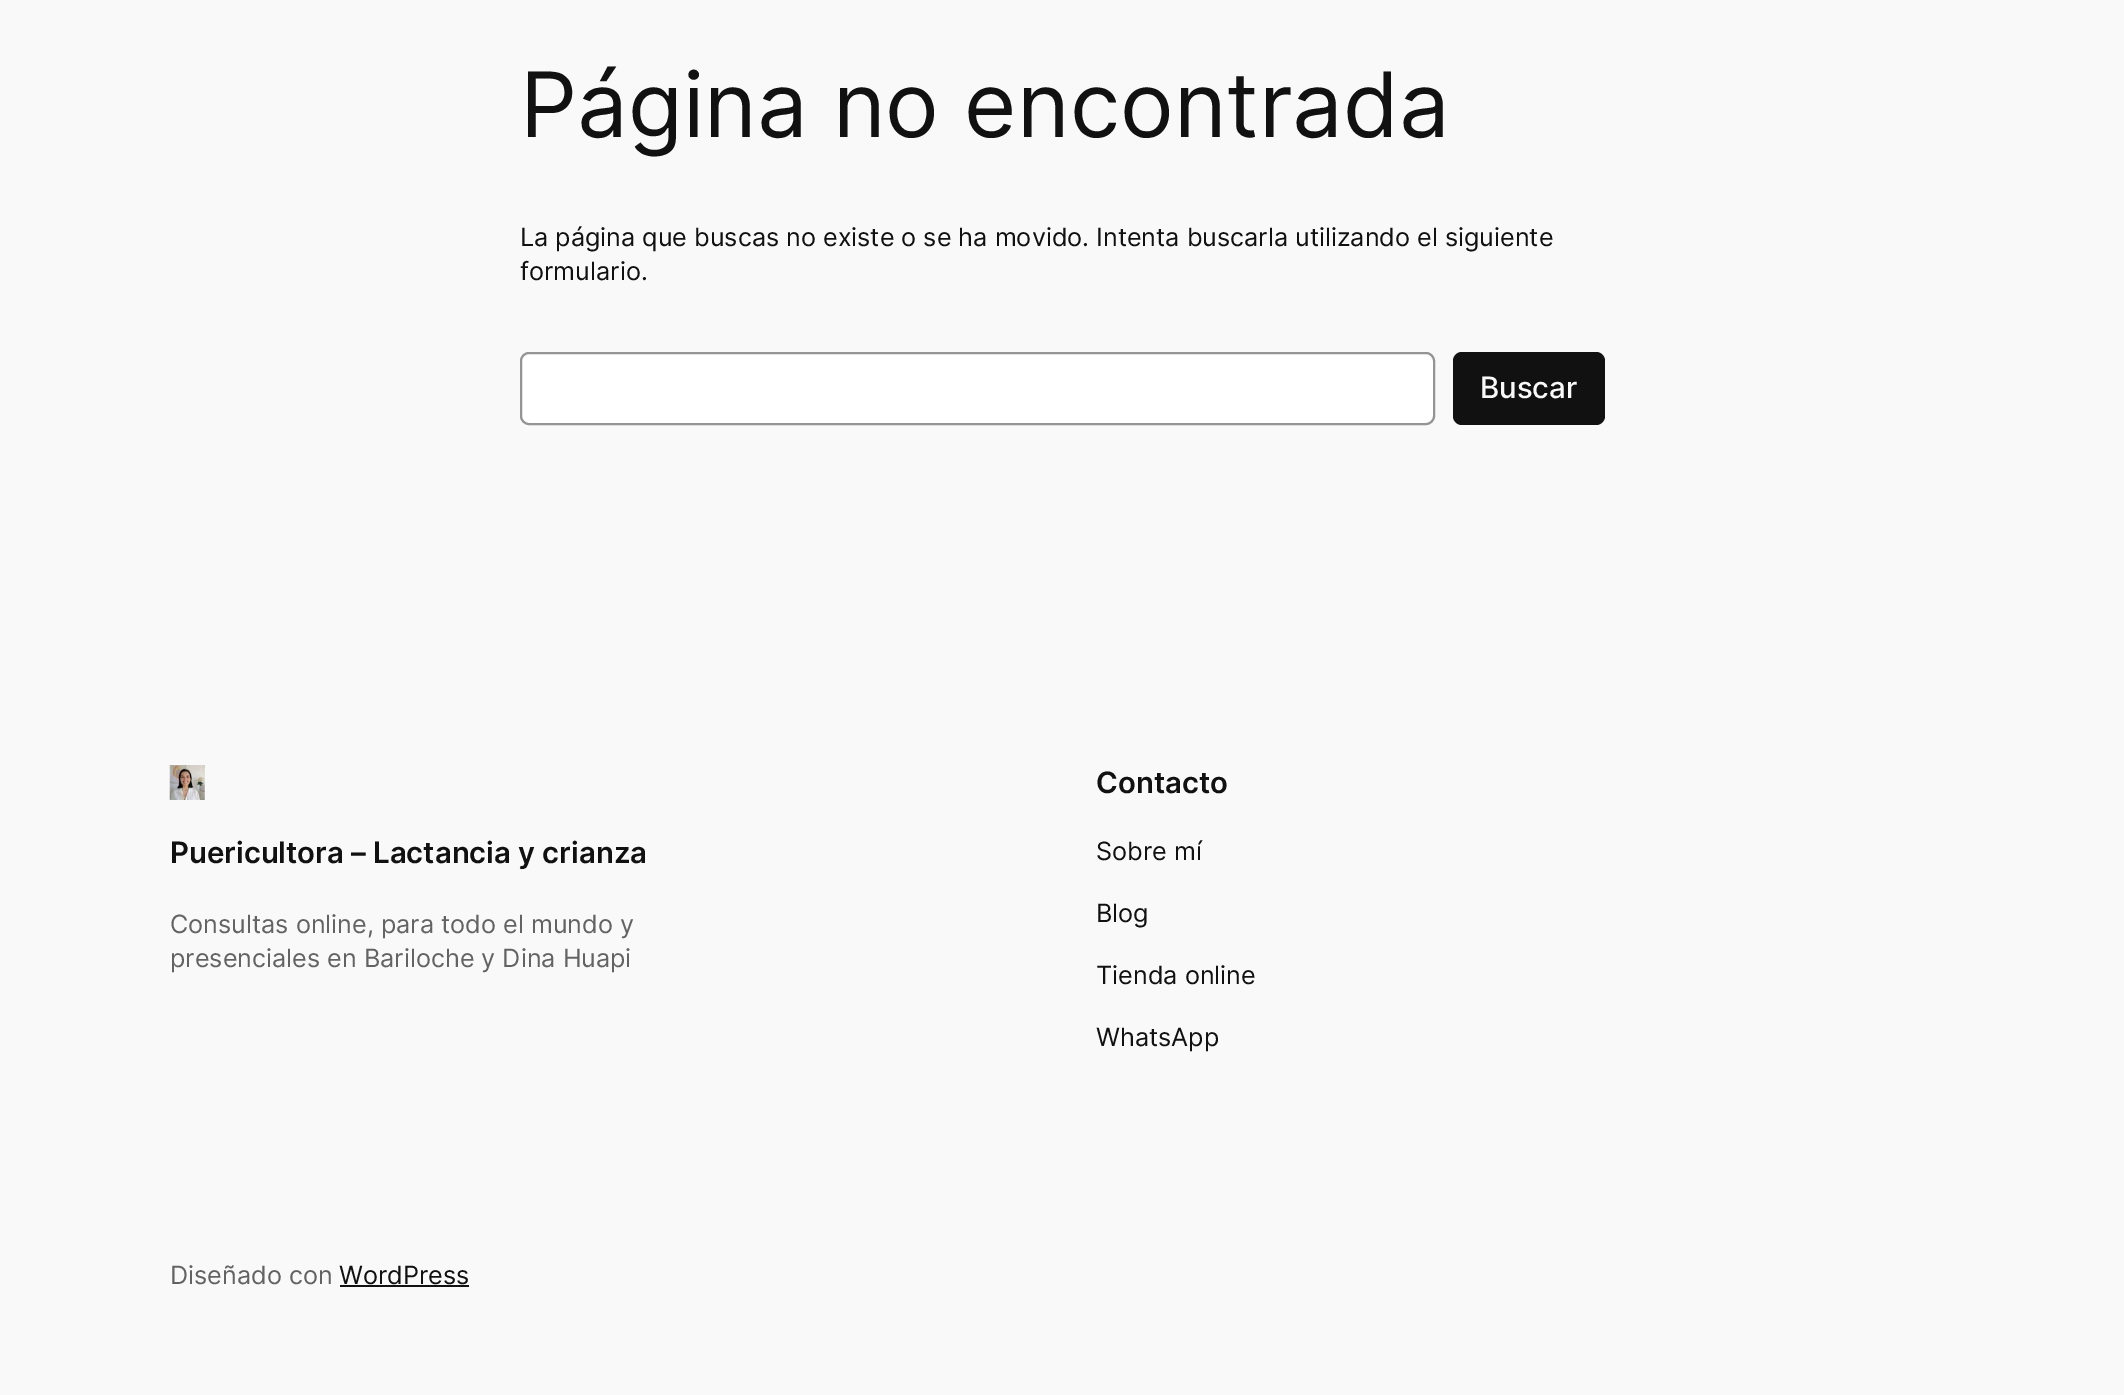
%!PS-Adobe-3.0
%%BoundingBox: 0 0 2124 1395
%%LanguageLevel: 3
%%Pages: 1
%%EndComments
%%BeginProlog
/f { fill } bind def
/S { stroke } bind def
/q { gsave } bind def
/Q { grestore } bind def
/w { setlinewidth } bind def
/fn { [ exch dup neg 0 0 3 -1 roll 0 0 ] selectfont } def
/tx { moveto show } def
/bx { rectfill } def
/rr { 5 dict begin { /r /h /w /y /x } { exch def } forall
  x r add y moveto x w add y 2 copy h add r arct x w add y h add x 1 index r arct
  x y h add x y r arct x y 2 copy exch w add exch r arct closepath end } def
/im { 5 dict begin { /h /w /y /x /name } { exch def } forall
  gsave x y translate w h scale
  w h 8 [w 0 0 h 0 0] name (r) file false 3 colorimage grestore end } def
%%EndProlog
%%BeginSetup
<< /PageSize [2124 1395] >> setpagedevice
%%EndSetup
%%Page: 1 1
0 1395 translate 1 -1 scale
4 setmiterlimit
0.976 setgray
0 0 2124 1395 bx
/Inter-Regular 90 fn
0.067 setgray
(Página no encontrada) 520 137 tx
/Inter-Regular 25.2 fn
(La página que buscas no existe o se ha movido. Intenta buscarla utilizando el siguiente) 520 246 tx
(formulario.) 520 280 tx
1 setgray
521 353 913 71 8 rr q f Q
0.58 setgray
2 w
S
0.067 setgray
1453 352 152 73 9 rr f
/Inter-Medium 29.4 fn
0.976 setgray
(Buscar) 1480 398 tx
(image0.raw) 169 765 36 35 im
/Inter-SemiBold 29.4 fn
0.067 setgray
(Puericultora – Lactancia y crianza) 170 863 tx
/Inter-Regular 25.2 fn
0.388 setgray
(Consultas online, para todo el mundo y) 170 933 tx
(presenciales en Bariloche y Dina Huapi) 170 967 tx
/Inter-SemiBold 29.4 fn
0.067 setgray
(Contacto) 1096 793 tx
/Inter-Regular 25.2 fn
(Sobre mí) 1096 860 tx
(Blog) 1096 922 tx
(Tienda online) 1096 984 tx
(WhatsApp) 1096 1046 tx
0.388 setgray
(Diseñado con) 170 1284 tx
0.067 setgray
(WordPress) 339 1284 tx
340 1285 129 2 bx
showpage
%%EOF
